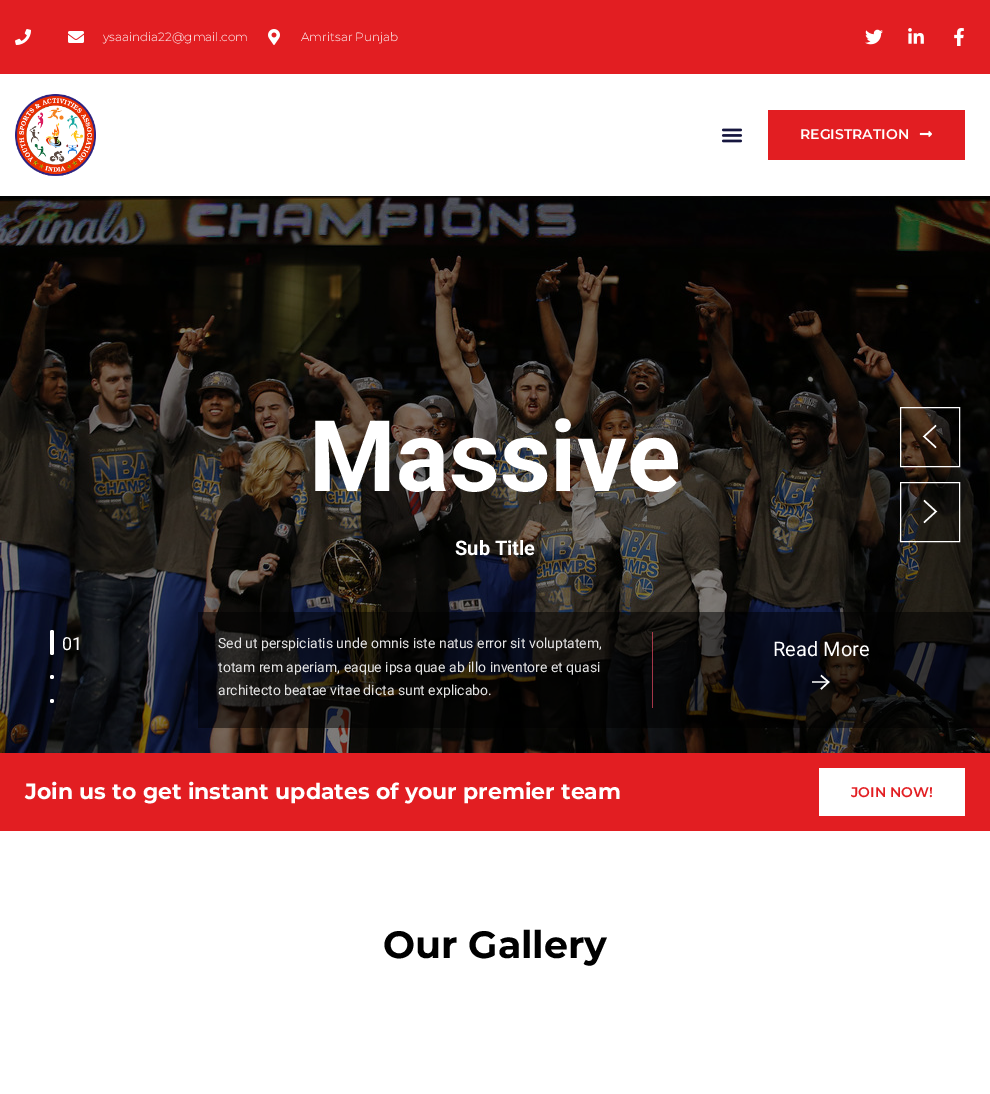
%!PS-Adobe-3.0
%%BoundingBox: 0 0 990 1094
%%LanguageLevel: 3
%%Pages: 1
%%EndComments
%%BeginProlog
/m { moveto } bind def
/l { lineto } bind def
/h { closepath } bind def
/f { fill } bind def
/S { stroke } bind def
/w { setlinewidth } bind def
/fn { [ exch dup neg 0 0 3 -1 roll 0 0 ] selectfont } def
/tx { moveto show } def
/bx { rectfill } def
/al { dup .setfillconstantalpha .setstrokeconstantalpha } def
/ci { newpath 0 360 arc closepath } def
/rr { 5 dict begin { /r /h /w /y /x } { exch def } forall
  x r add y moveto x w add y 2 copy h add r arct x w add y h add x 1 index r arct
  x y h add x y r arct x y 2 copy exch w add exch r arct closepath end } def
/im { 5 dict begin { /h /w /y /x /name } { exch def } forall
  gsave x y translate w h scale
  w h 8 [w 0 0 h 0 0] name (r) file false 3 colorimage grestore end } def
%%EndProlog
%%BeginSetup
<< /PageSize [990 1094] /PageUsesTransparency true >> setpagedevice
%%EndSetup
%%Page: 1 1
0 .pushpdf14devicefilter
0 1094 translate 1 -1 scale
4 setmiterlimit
1 setgray
0 0 990 1094 bx
0.886 0.118 0.133 setrgbcolor
0 0 990 74 bx
(image0.raw) 15 29 16 16 im
(image1.raw) 68 31 16 12 im
/Montserrat-Light 12 fn
1 setgray
(ysaaindia22@gmail.com) 103 41 tx
(image2.raw) 268 29 12 16 im
(Amritsar Punjab) 301 41 tx
(image3.raw) 865 29 18 16 im
(image4.raw) 908 28 16 16 im
(image5.raw) 954 28 10 18 im
(image6.raw) 15 94 81 82 im
(image7.raw) 721 128 22 15 im
0.886 0.118 0.133 setrgbcolor
768 110 197 50 bx
/Montserrat-SemiBold 14 fn
1 setgray
(REGISTRATION) 800 139 tx
(image8.raw) 919 131 13 6 im
(image9.raw) 0 196 990 557 im
50 630 4 25 2 rr f
/Roboto-Regular 18 fn
(01) 62 650 tx
52 677 2 ci f
52 701 2 ci f
/Roboto-Bold 99 fn
(Massive) 309 491 tx
/Roboto-Bold 20 fn
(Sub Title) 455 555 tx
0.5 al
0 setgray
198 612 792 116 bx
0.63 al
0.996 0.314 0.424 setrgbcolor
652 632 1 76 bx
/Roboto-Regular 14 fn
1 al
0.898 setgray
(Sed ut perspiciatis unde omnis iste natus error sit voluptatem,) 218 648 tx
(totam rem aperiam, eaque ipsa quae ab illo inventore et quasi) 218 672 tx
(architecto beatae vitae dicta sunt explicabo.) 218 695 tx
/Roboto-Regular 20 fn
1 setgray
(Read More) 773 656 tx
1.5 w
821 675.5 m 828.5 682 l 821 689 l S
0.75 al
812 681 17 2 bx
0.1 al
0 setgray
901 408 57 58 bx
1 al
1 setgray
1 w
900.5 407.5 59 59 rectstroke
1.4 w
936 425.5 m 924 436.5 l 936 447.5 l S
0.1 al
0 setgray
900.5 482.5 m 959.5 482.5 l 959.5 541.5 l 900.5 541.5 l h f
1 al
1 setgray
1 w
900.5 482.5 m 959.5 482.5 l 959.5 541.5 l 900.5 541.5 l h S
1.4 w
924 522.5 m 936 511.5 l 924 500.5 l S
0.886 0.118 0.133 setrgbcolor
0 753 990 78 bx
/Montserrat-Bold 22 fn
1 setgray
(Join us to get instant updates of your premier team) 25 799 tx
819 768 146 48 bx
/Montserrat-SemiBold 14 fn
0.886 0.118 0.133 setrgbcolor
(JOIN NOW!) 851 797 tx
/Montserrat-Bold 38 fn
0 setgray
(Our Gallery) 383 958 tx
.poppdf14devicefilter showpage
%%EOF
